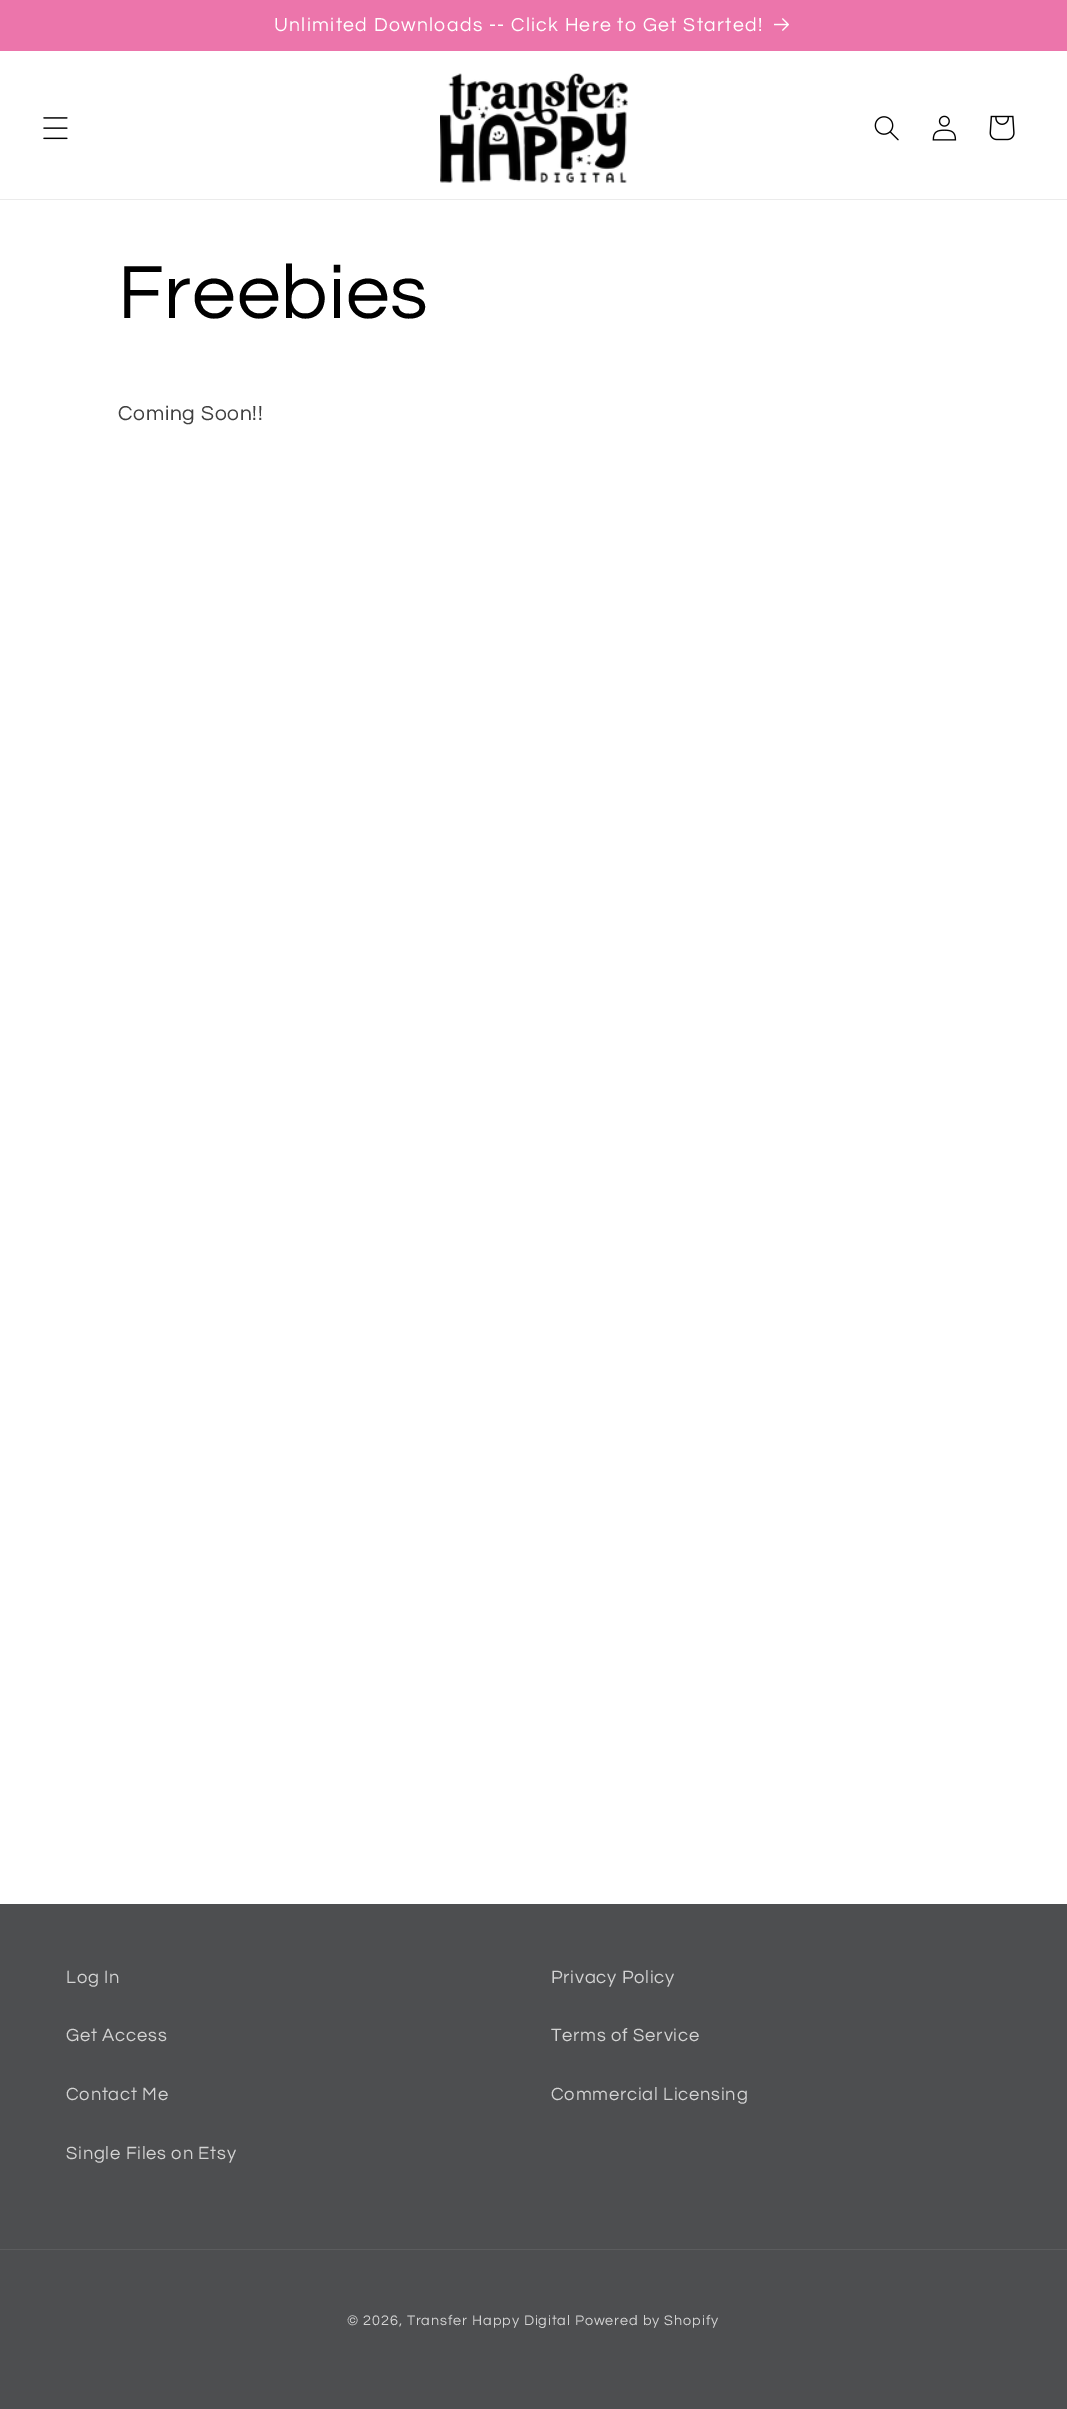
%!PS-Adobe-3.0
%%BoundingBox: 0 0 1067 2409
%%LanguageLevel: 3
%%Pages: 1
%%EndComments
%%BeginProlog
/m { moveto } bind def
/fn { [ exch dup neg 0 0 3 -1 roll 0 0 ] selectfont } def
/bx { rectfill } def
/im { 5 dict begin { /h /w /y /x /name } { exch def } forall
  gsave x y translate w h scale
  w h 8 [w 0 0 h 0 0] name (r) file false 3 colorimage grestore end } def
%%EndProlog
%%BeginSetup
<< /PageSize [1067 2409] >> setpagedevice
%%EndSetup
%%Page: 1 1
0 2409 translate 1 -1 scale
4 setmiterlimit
1 setgray
0 0 1067 2409 bx
0.925 0.459 0.671 setrgbcolor
0 0 1067 51 bx
/Questrial-Regular 19.5 fn
1 setgray
274 31 m 1.3 0 (Unlimited Downloads -- Click Here to Get Started!) ashow
(image0.raw) 774 18 15 13 im
0.922 setgray
0 199 1067 1 bx
(image1.raw) 43 117 25 23 im
(image2.raw) 440 73 188 110 im
(image3.raw) 874 116 25 25 im
(image4.raw) 932 115 25 26 im
(image5.raw) 989 115 26 26 im
/Questrial-Regular 78 fn
0 setgray
118 318 m 1 0 (Freebies) ashow
/Questrial-Regular 21 fn
0.251 setgray
118 420 m 0.75 0 (Coming Soon!!) ashow
0.302 0.306 0.314 setrgbcolor
0 1904 1067 505 bx
/Questrial-Regular 18.4 fn
0.827 setgray
66 1983 m 0.75 0 (Log In) ashow
66 2041 m 0.75 0 (Get Access) ashow
66 2100 m 0.75 0 (Contact Me) ashow
66 2159 m 0.75 0 (Single Files on Etsy) ashow
551 1983 m 0.75 0 (Privacy Policy) ashow
551 2041 m 0.75 0 (Terms of Service) ashow
551 2100 m 0.75 0 (Commercial Licensing) ashow
0.357 0.361 0.369 setrgbcolor
0 2249 1067 1 bx
/Questrial-Regular 14.45 fn
0.827 setgray
347 2325 m 0.9 0 (© 2026, Transfer Happy Digital Powered by Shopify) ashow
showpage
%%EOF
